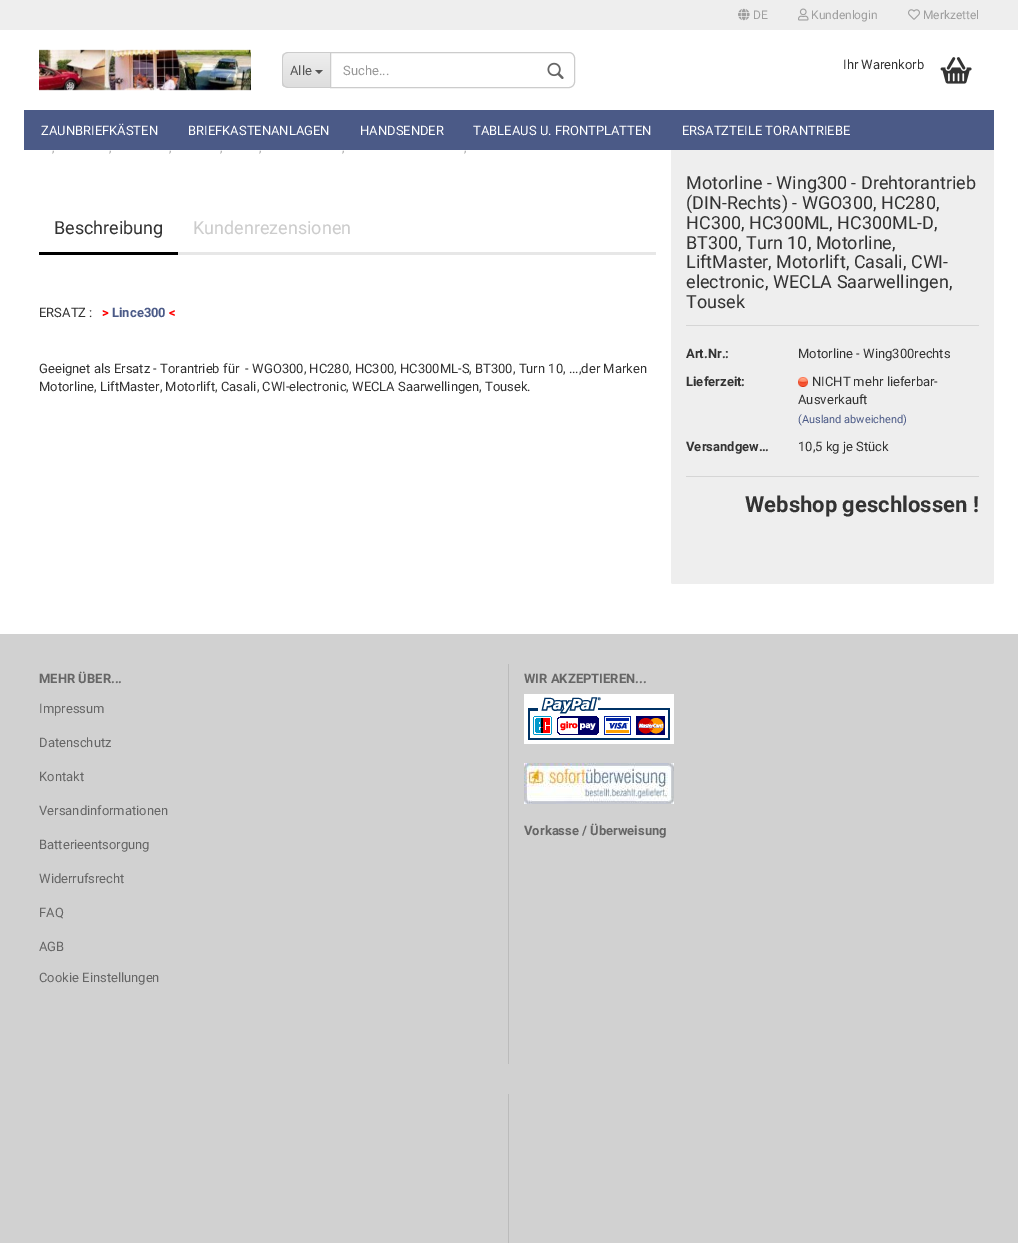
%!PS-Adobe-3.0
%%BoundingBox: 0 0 1018 1243
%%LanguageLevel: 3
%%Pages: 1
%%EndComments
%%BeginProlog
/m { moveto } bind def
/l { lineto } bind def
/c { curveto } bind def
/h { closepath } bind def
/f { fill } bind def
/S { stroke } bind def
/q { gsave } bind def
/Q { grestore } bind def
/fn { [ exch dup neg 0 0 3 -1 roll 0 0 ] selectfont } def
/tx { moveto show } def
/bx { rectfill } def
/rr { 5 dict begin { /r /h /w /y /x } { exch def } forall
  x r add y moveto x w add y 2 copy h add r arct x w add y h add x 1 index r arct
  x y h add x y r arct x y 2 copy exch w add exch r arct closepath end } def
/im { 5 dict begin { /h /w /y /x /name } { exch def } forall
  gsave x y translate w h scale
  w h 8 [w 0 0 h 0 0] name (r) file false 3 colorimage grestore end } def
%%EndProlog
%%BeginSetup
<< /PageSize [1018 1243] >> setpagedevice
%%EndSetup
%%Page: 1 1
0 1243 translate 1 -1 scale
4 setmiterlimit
1 setgray
0 0 1018 1243 bx
0.933 setgray
671 134 323 450 2 rr f
1 setgray
671 134 323 16 bx
0.933 setgray
0 0 1018 30 bx
(image0.raw) 738 8 12 13 im
/Roboto-Regular 12 fn
0.624 setgray
(DE) 753 19 tx
(image1.raw) 798 8 11 13 im
(Kundenlogin) 811 19 tx
(image2.raw) 908 9 12 11 im
(Merkzettel) 923 19 tx
(image3.raw) 39 49 212 42 im
q
288 52 m 330 52 l 330 88 l 288 88 l 284.5 88 282 85.5 282 82 c 282 58 l 282 54.5 284.5 52 288 52 c h clip newpath
q 282 53 m 330 53 l 330 87 l 282 87 l h clip newpath
<< /ShadingType 2 /ColorSpace /DeviceRGB /Coords [307 53 307 87] /Extend [true true] /Function << /FunctionType 2 /Domain [0 1] /C0 [0.933 0.933 0.933] /C1 [0.871 0.871 0.871] /N 1 >> >> shfill Q
Q
0.8 setgray
288 52 m 330 52 l 330 88 l 288 88 l 285 88 282 85 282 82 c 282 58 l 282 55 285 52 288 52 c h 288 53 m 330 53 l 330 87 l 288 87 l 285 87 283 85 283 82 c 283 58 l 283 55 285 53 288 53 c h eofill
/Roboto-Regular 13 fn
0.333 setgray
(Alle) 290 75 tx
315 70 m 323 70 l 319 74 l h f
0.8 setgray
330.5 52.5 m 569 52.5 l 572 52.5 574.5 55 574.5 58 c 574.5 82 l 574.5 85 572 87.5 569 87.5 c 330.5 87.5 l h S
0.6 setgray
(Suche...) 343 75 tx
(image4.raw) 547 62 17 17 im
0.2 setgray
(Ihr Warenkorb) 843 69 tx
(image5.raw) 940 57 32 27 im
0.294 0.353 0.529 setrgbcolor
24 110 970 40 bx
1 setgray
(ZAUNBRIEFKÄSTEN) 41 135 tx
(BRIEFKASTENANLAGEN) 188 135 tx
(HANDSENDER) 360 135 tx
(TABLEAUS U. FRONTPLATTEN) 473 135 tx
(ERSATZTEILE TORANTRIEBE) 682 135 tx
/Roboto-Regular 12 fn
0.6 setgray
(,) 52 152 tx
(,) 109 152 tx
(,) 169 152 tx
(,) 220 152 tx
(,) 259 152 tx
(,) 342 152 tx
(,) 464 152 tx
0.906 setgray
178 252 478 3 bx
0 setgray
39 252 139 3 bx
/Roboto-Regular 18 fn
0.2 setgray
(Beschreibung) 54 234 tx
0.8 setgray
(Kundenrezensionen) 193 234 tx
/Roboto-Regular 13 fn
0.2 setgray
(ERSATZ :) 39 317 tx
/Roboto-Bold 13 fn
1 0 0 setrgbcolor
(>) 102 317 tx
0.294 0.353 0.529 setrgbcolor
(Lince300) 112 317 tx
1 0 0 setrgbcolor
(<) 169 317 tx
/Roboto-Regular 13 fn
0.2 setgray
(Geeignet als Ersatz - Torantrieb für  - WGO300, HC280, HC300, HC300ML-S, BT300, Turn 10, ...,der Marken) 39 373 tx
(Motorline, LiftMaster, Motorlift, Casali, CWI-electronic, WECLA Saarwellingen, Tousek.) 39 391 tx
0.835 setgray
686 325 293 1 bx
/Roboto-Regular 18 fn
0.2 setgray
(Motorline - Wing300 - Drehtorantrieb) 686 189 tx
(\(DIN-Rechts\) - WGO300, HC280,) 686 209 tx
(HC300, HC300ML, HC300ML-D,) 686 229 tx
(BT300, Turn 10, Motorline,) 686 249 tx
(LiftMaster, Motorlift, Casali, CWI-) 686 268 tx
(electronic, WECLA Saarwellingen,) 686 288 tx
(Tousek) 686 308 tx
0.835 setgray
686 476 293 1 bx
/Roboto-Bold 13 fn
0.2 setgray
(Art.Nr.:) 686 358 tx
/Roboto-Regular 13 fn
(Motorline - Wing300rechts) 798 358 tx
/Roboto-Bold 13 fn
(Lieferzeit:) 686 386 tx
(image6.raw) 798 377 10 10 im
/Roboto-Regular 13 fn
(NICHT mehr lieferbar-) 812 386 tx
(Ausverkauft) 798 404 tx
/Roboto-Regular 11 fn
0.294 0.353 0.529 setrgbcolor
(\(Ausland abweichend\)) 798 423 tx
/Roboto-Bold 13 fn
0.2 setgray
(Versandgew…) 686 451 tx
/Roboto-Regular 13 fn
(10,5 kg je Stück) 798 451 tx
/Roboto-Bold 22 fn
(Webshop geschlossen !) 745 512 tx
0.82 setgray
0 634 1018 609 bx
0.733 setgray
508 664 1 400 bx
/Roboto-Bold 13 fn
0.4 setgray
(MEHR ÜBER...) 39 683 tx
/Roboto-Regular 13 fn
(Impressum) 39 713 tx
(Datenschutz) 39 747 tx
(Kontakt) 39 781 tx
(Versandinformationen) 39 815 tx
(Batterieentsorgung) 39 849 tx
(Widerrufsrecht) 39 883 tx
(FAQ) 39 917 tx
(AGB) 39 951 tx
(Cookie Einstellungen) 39 982 tx
/Roboto-Bold 13 fn
(WIR AKZEPTIEREN...) 524 683 tx
(image7.raw) 524 694 150 50 im
(image8.raw) 524 763 150 41 im
(Vorkasse / Überweisung) 524 835 tx
0.733 setgray
508 1094 1 149 bx
showpage
%%EOF
